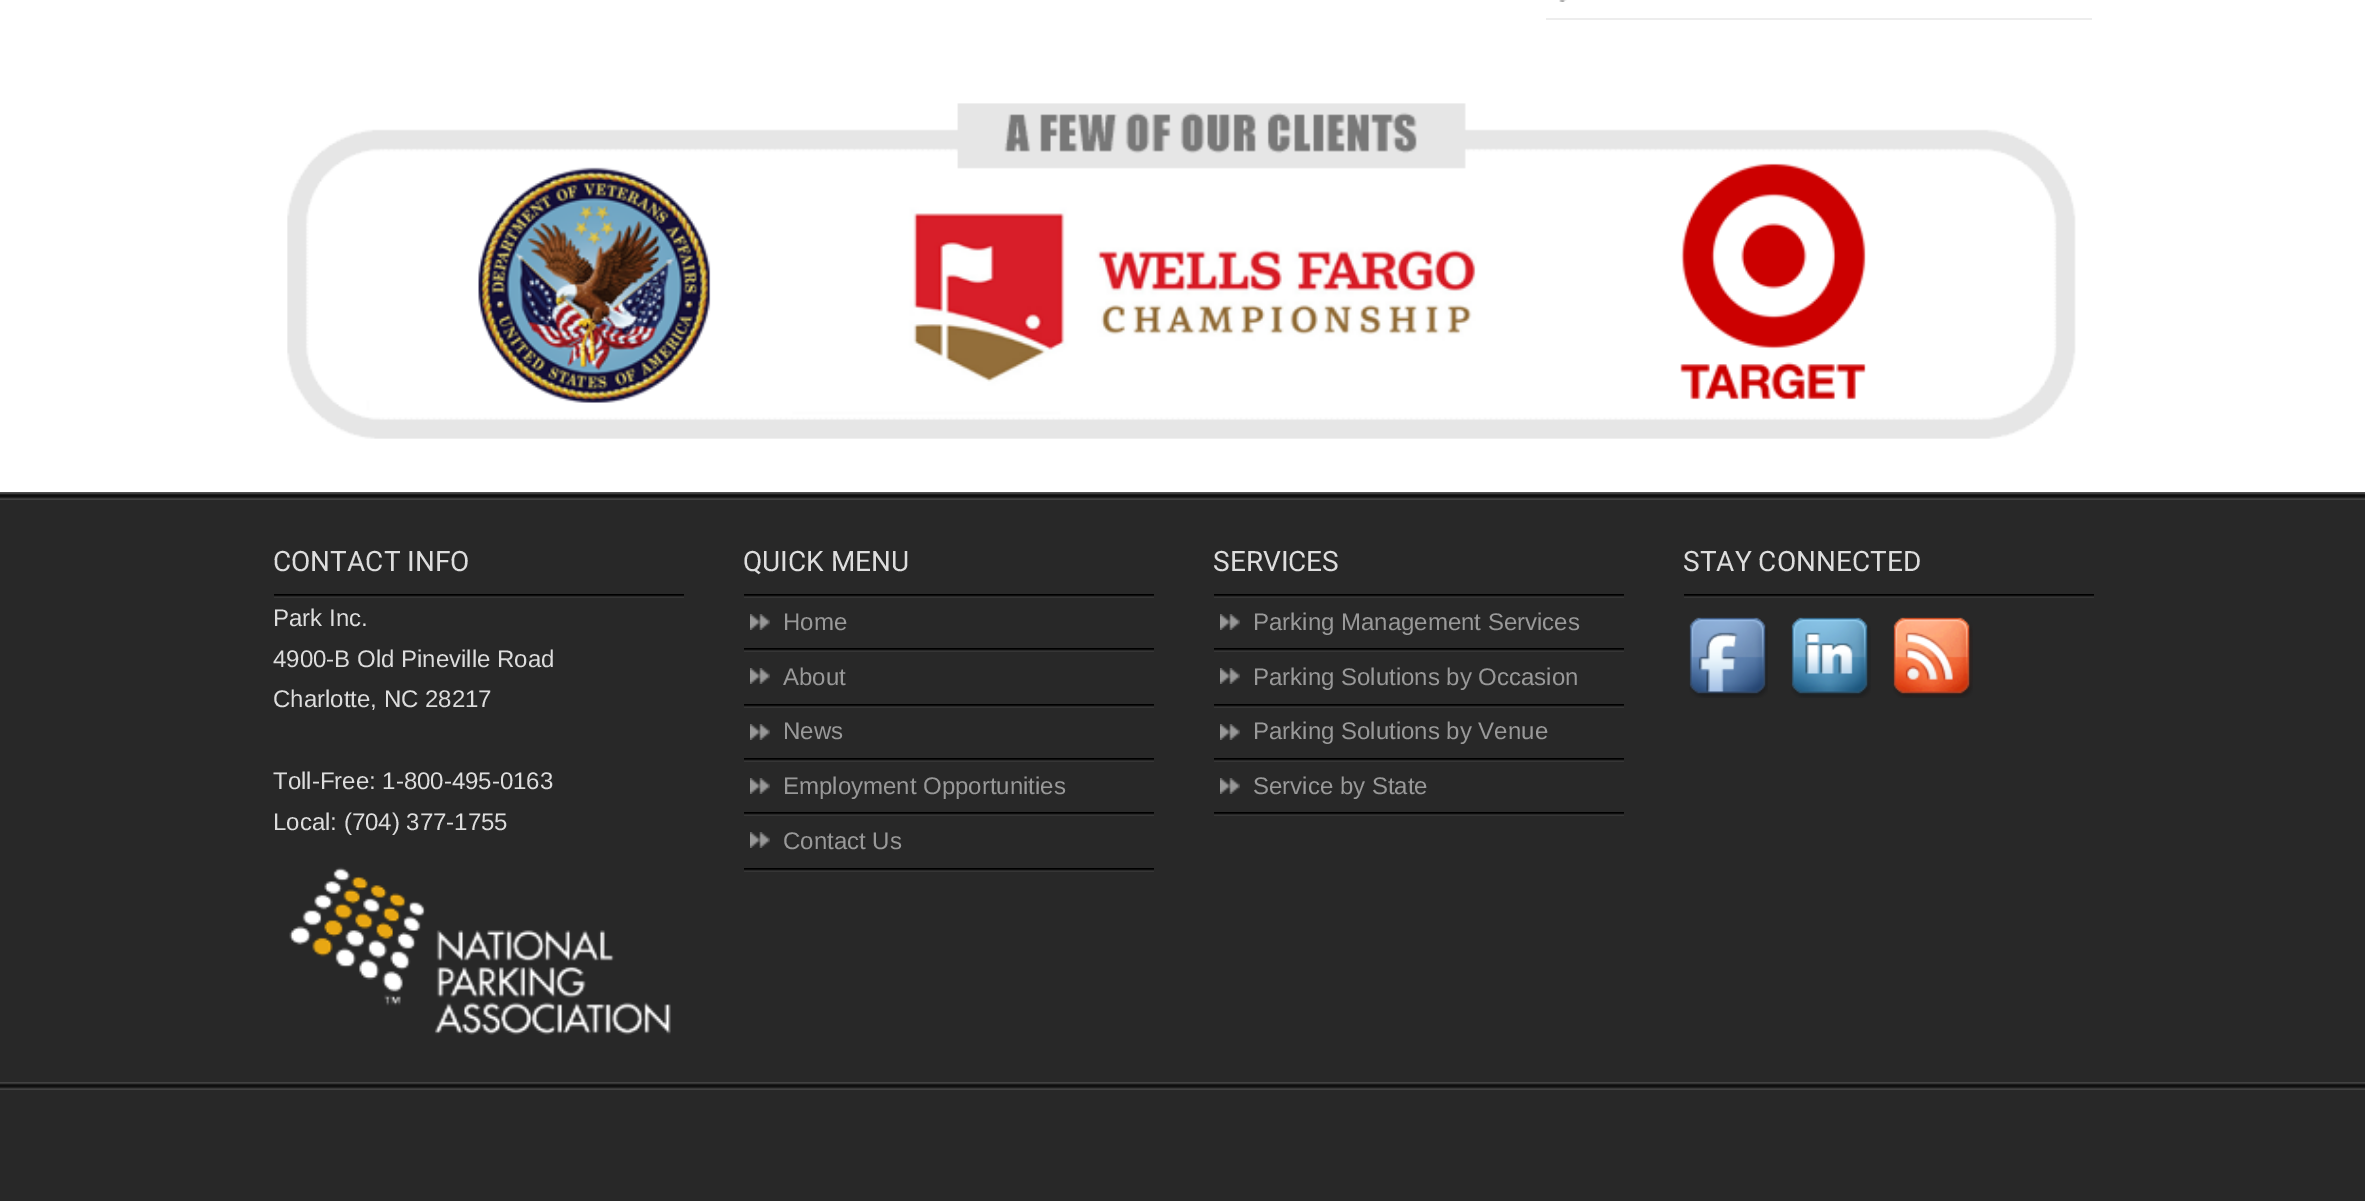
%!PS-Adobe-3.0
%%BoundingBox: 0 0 2365 1201
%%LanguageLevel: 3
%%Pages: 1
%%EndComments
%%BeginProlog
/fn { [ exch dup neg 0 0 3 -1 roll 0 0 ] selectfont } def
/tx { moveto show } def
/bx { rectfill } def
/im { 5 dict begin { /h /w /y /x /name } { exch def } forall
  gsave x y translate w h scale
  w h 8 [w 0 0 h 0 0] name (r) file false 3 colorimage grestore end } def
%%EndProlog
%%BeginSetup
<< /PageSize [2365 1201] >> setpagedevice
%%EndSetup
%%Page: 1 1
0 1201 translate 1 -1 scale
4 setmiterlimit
1 setgray
0 0 2365 1201 bx
0.929 setgray
1546 18 546 2 bx
(image0.raw) 1559 0 8 2 im
(image1.raw) 287 103 1789 336 im
0.157 setgray
0 500 2365 582 bx
(image2.raw) 0 492 2365 8 im
(image3.raw) 274 594 410 4 im
/Roboto-Regular 28 fn
0.867 setgray
(CONTACT INFO) 273 571 tx
/LiberationSans-Regular 24 fn
(Park Inc.) 273 626 tx
(4900-B Old Pineville Road) 273 667 tx
(Charlotte, NC 28217) 273 707 tx
(Toll-Free: 1-800-495-0163) 273 789 tx
(Local: \(704\) 377-1755) 273 830 tx
(image4.raw) 289 867 382 168 im
(image3.raw) 744 594 410 4 im
/Roboto-Regular 28 fn
(QUICK MENU) 743 571 tx
(image5.raw) 750 614 20 16 im
(image3.raw) 744 648 410 4 im
/LiberationSans-Regular 24 fn
0.6 setgray
(Home) 783 630 tx
(image5.raw) 750 668 20 16 im
(image3.raw) 744 704 410 4 im
(About) 783 685 tx
(image5.raw) 750 724 20 16 im
(image3.raw) 744 758 410 4 im
(News) 783 739 tx
(image5.raw) 750 778 20 16 im
(image3.raw) 744 812 410 4 im
(Employment Opportunities) 783 794 tx
(image5.raw) 750 832 20 16 im
(image3.raw) 744 868 410 4 im
(Contact Us) 783 849 tx
(image3.raw) 1214 594 410 4 im
/Roboto-Regular 28 fn
0.867 setgray
(SERVICES) 1213 571 tx
(image5.raw) 1220 614 20 16 im
(image3.raw) 1214 648 410 4 im
/LiberationSans-Regular 24 fn
0.6 setgray
(Parking Management Services) 1253 630 tx
(image5.raw) 1220 668 20 16 im
(image3.raw) 1214 704 410 4 im
(Parking Solutions by Occasion) 1253 685 tx
(image5.raw) 1220 724 20 16 im
(image3.raw) 1214 758 410 4 im
(Parking Solutions by Venue) 1253 739 tx
(image5.raw) 1220 778 20 16 im
(image3.raw) 1214 812 410 4 im
(Service by State) 1253 794 tx
(image3.raw) 1684 594 410 4 im
/Roboto-Regular 28 fn
0.867 setgray
(STAY CONNECTED) 1683 571 tx
(image6.raw) 1689 617 79 81 im
(image7.raw) 1791 617 80 81 im
(image8.raw) 1893 617 80 81 im
0.157 setgray
0 1090 2365 111 bx
(image9.raw) 0 1082 2365 8 im
showpage
%%EOF
